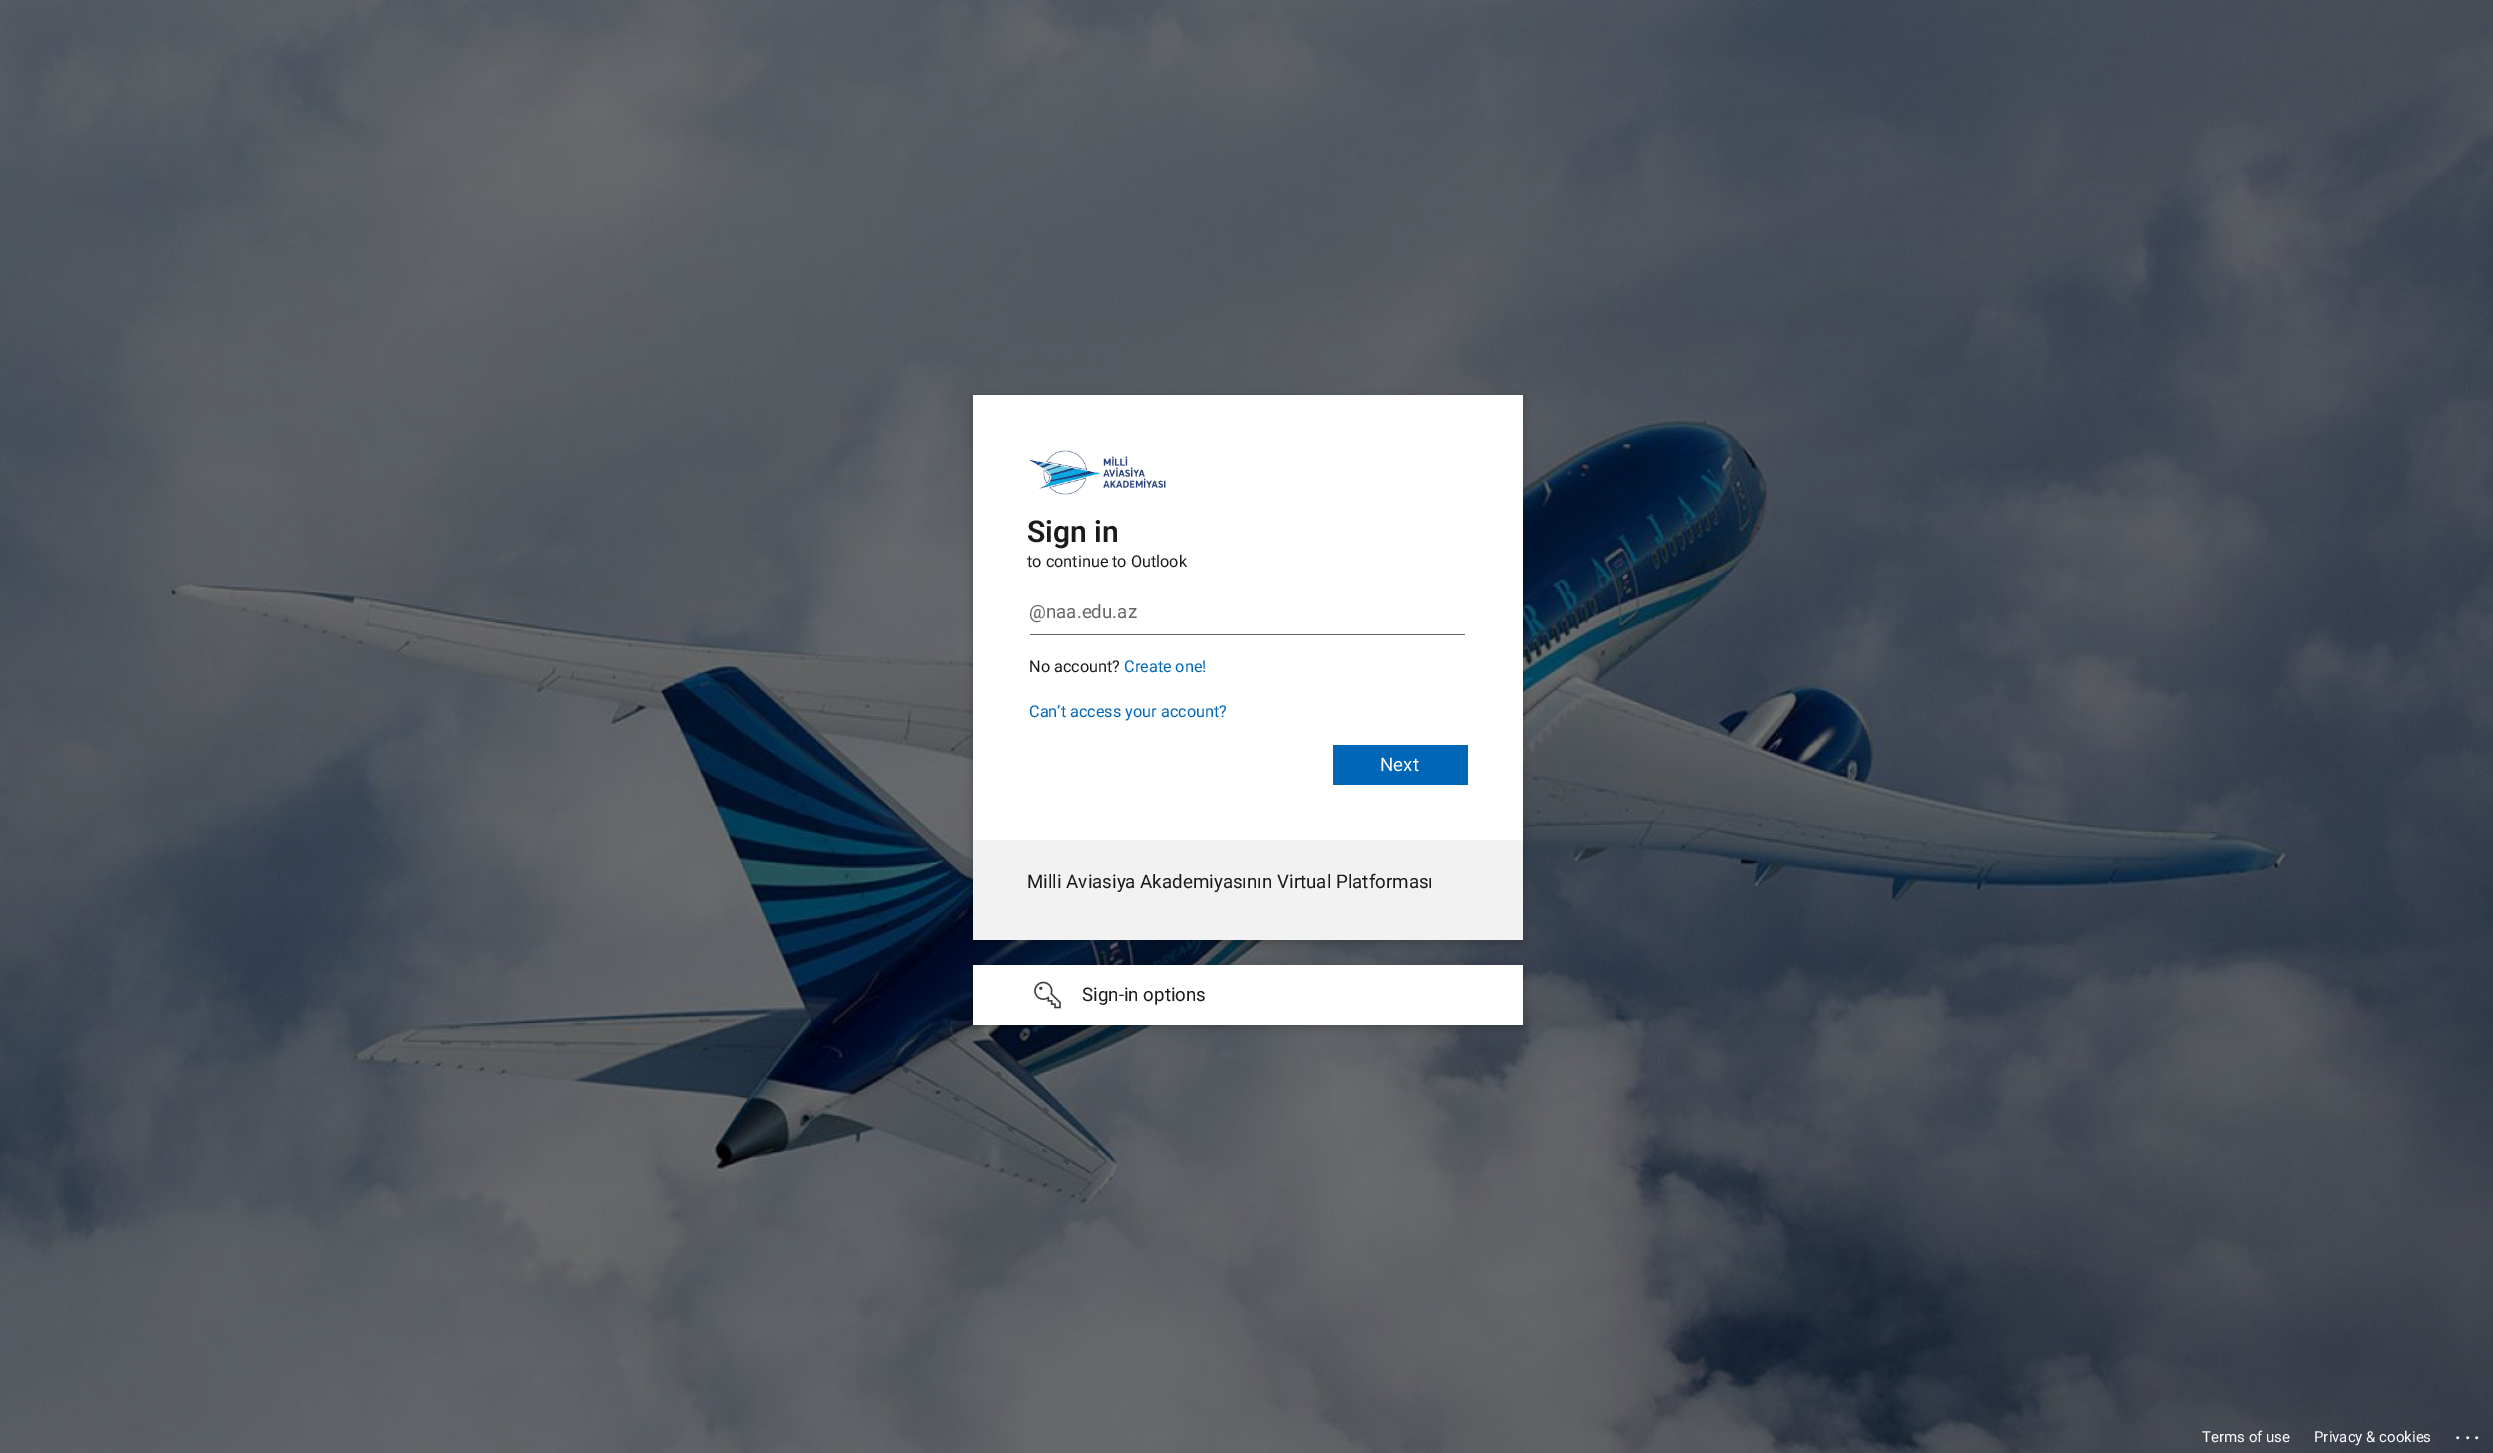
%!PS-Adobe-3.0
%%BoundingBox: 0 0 2493 1453
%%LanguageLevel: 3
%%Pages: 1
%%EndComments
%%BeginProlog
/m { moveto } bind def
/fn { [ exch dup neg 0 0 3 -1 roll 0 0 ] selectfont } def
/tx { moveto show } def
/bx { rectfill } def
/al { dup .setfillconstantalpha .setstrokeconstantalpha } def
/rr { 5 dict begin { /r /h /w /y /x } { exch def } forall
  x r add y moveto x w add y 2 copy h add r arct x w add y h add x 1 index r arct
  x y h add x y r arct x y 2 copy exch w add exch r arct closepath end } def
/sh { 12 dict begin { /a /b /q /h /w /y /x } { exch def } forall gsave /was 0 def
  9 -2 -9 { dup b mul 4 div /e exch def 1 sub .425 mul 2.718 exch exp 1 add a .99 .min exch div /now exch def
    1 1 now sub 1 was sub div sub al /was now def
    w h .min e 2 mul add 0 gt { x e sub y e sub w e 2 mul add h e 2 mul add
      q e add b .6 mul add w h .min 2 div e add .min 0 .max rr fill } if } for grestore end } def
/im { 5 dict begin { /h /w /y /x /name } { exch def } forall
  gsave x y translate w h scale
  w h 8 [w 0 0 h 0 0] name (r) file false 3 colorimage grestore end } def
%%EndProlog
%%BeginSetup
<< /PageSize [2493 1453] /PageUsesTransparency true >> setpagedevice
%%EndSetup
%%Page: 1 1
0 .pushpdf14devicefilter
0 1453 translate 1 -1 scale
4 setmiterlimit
1 setgray
0 0 2493 1453 bx
(image0.raw) 0 0 2493 1453 im
0 setgray
973 398 550 545 0 4 0.2 sh
1 setgray
973 395 550 445 bx
(image1.raw) 1029 450 137 45 im
/Roboto-SemiBold 30 fn
0.106 setgray
(Sign in) 1027 542 tx
/Roboto-Regular 16.25 fn
(to continue to Outlook) 1027 567 tx
0.4 setgray
1030 634 435 1 bx
/Roboto-Regular 18.75 fn
(@naa.edu.az) 1029 618 tx
/Roboto-Regular 16.25 fn
0.106 setgray
(No account?) 1029 672 tx
0 0.404 0.722 setrgbcolor
(Create one!) 1124 672 tx
(Can’t access your account?) 1029 717 tx
1333 745 135 40 bx
/Roboto-Regular 18.75 fn
1 setgray
(Next) 1380 771 tx
0.949 setgray
973 840 550 100 bx
0.106 setgray
(Milli Aviasiya Akademiyasının Virtual Platforması) 1027 888 tx
0 setgray
973 968 550 60 0 4 0.2 sh
1 setgray
973 965 550 60 bx
(image2.raw) 1034 981 27 28 im
0.106 setgray
(Sign-in options) 1082 1001 tx
/Roboto-Regular 15 fn
1 setgray
(Terms of use) 2202 1442 tx
(Privacy & cookies) 2314 1442 tx
/Roboto-SemiBold 20 fn
2455 1439 m 4 0 (...) ashow
.poppdf14devicefilter showpage
%%EOF
